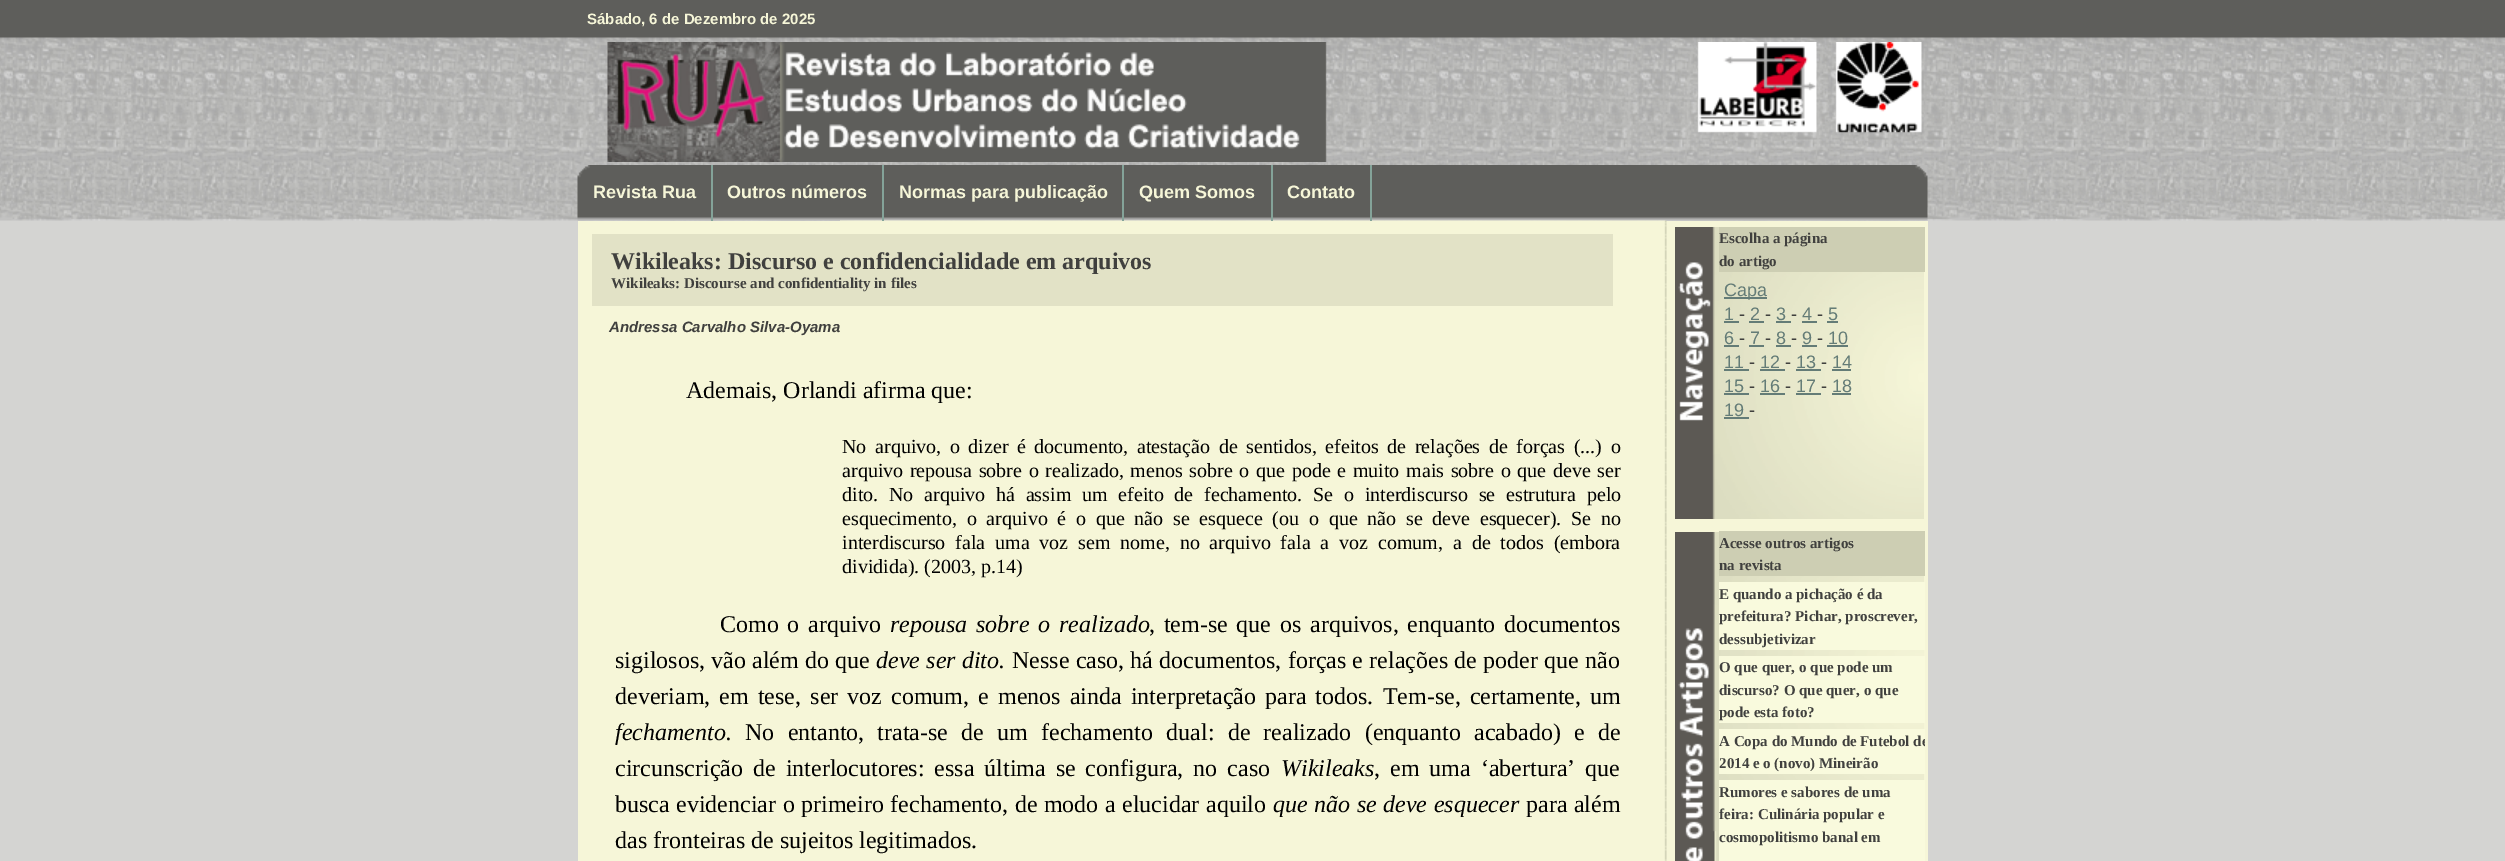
%!PS-Adobe-3.0
%%BoundingBox: 0 0 2505 861
%%LanguageLevel: 3
%%Pages: 1
%%EndComments
%%BeginProlog
/m { moveto } bind def
/q { gsave } bind def
/Q { grestore } bind def
/fn { [ exch dup neg 0 0 3 -1 roll 0 0 ] selectfont } def
/tx { moveto show } def
/bx { rectfill } def
/im { 5 dict begin { /h /w /y /x /name } { exch def } forall
  gsave x y translate w h scale
  w h 8 [w 0 0 h 0 0] name (r) file false 3 colorimage grestore end } def
%%EndProlog
%%BeginSetup
<< /PageSize [2505 861] >> setpagedevice
%%EndSetup
%%Page: 1 1
0 861 translate 1 -1 scale
4 setmiterlimit
0.831 0.831 0.824 setrgbcolor
0 0 2505 861 bx
(image0.raw) 0 0 2505 221 im
/LiberationSans-Bold 15 fn
0.965 0.965 0.847 setrgbcolor
(Sábado, 6 de Dezembro de 2025) 587 24 tx
(image1.raw) 607 42 1315 120 im
(image2.raw) 577 165 1351 56 im
0.518 0.639 0.6 setrgbcolor
711 165 2 56 bx
/LiberationSans-Bold 18 fn
0.965 0.965 0.847 setrgbcolor
(Revista Rua) 593 198 tx
578 221 1350 640 bx
(image3.raw) 840 220 827 641 im
0.518 0.639 0.6 setrgbcolor
882 165 2 56 bx
0.965 0.965 0.847 setrgbcolor
(Outros números) 727 198 tx
0.518 0.639 0.6 setrgbcolor
1122 165 2 56 bx
0.965 0.965 0.847 setrgbcolor
(Normas para publicação) 899 198 tx
0.518 0.639 0.6 setrgbcolor
1271 165 2 56 bx
0.965 0.965 0.847 setrgbcolor
(Quem Somos) 1139 198 tx
0.518 0.639 0.6 setrgbcolor
1370 165 2 56 bx
0.965 0.965 0.847 setrgbcolor
(Contato) 1287 198 tx
0.886 0.886 0.776 setrgbcolor
592 234 1021 72 bx
/LiberationSerif-Bold 24 fn
0.251 0.251 0.243 setrgbcolor
(Wikileaks: Discurso e confidencialidade em arquivos) 611 269 tx
/LiberationSerif-Bold 15 fn
(Wikileaks: Discourse and confidentiality in files) 611 288 tx
/LiberationSans-BoldItalic 15 fn
(Andressa Carvalho Silva-Oyama) 609 332 tx
/LiberationSerif-Regular 24 fn
0 setgray
(Ademais, Orlandi afirma que:) 686 398 tx
/LiberationSerif-Regular 20 fn
842 453 m 3.6 0 32 (No arquivo, o dizer é documento, atestação de sentidos, efeitos de relações de forças \(...\) o) widthshow
842 477 m 1.7 0 32 (arquivo repousa sobre o realizado, menos sobre o que pode e muito mais sobre o que deve ser) widthshow
842 501 m 5.75 0 32 (dito. No arquivo há assim um efeito de fechamento. Se o interdiscurso se estrutura pelo) widthshow
842 525 m 4.75 0 32 (esquecimento, o arquivo é o que não se esquece \(ou o que não se deve esquecer\). Se no) widthshow
842 549 m 4.9 0 32 (interdiscurso fala uma voz sem nome, no arquivo fala a voz comum, a de todos \(embora) widthshow
(dividida\). \(2003, p.14\)) 842 573 tx
/LiberationSerif-Regular 24 fn
720 632 m 2.75 0 32 (Como o arquivo) widthshow
/LiberationSerif-Italic 24 fn
890 632 m 2.75 0 32 (repousa sobre o realizado) widthshow
/LiberationSerif-Regular 24 fn
1149 632 m 2.75 0 32 (, tem-se que os arquivos, enquanto documentos) widthshow
615 668 m 0.25 0 32 (sigilosos, vão além do que) widthshow
/LiberationSerif-Italic 24 fn
876 668 m 0.25 0 32 (deve ser dito.) widthshow
/LiberationSerif-Regular 24 fn
1012 668 m 0.25 0 32 (Nesse caso, há documentos, forças e relações de poder que não) widthshow
615 704 m 3.1 0 32 (deveriam, em tese, ser voz comum, e menos ainda interpretação para todos. Tem-se, certamente, um) widthshow
/LiberationSerif-Italic 24 fn
(fechamento.) 615 740 tx
/LiberationSerif-Regular 24 fn
745 740 m 7.25 0 32 (No entanto, trata-se de um fechamento dual: de realizado \(enquanto acabado\) e de) widthshow
615 776 m 4 0 32 (circunscrição de interlocutores: essa última se configura, no caso) widthshow
/LiberationSerif-Italic 24 fn
(Wikileaks) 1281 776 tx
/LiberationSerif-Regular 24 fn
1374 776 m 4 0 32 (, em uma ‘abertura’ que) widthshow
615 812 m 0.5 0 32 (busca evidenciar o primeiro fechamento, de modo a elucidar aquilo) widthshow
/LiberationSerif-Italic 24 fn
1273 812 m 0.5 0 32 (que não se deve esquecer) widthshow
/LiberationSerif-Regular 24 fn
1526 812 m 0.5 0 32 (para além) widthshow
(das fronteiras de sujeitos legitimados.) 615 848 tx
(image4.raw) 1675 227 249 292 im
0.804 0.808 0.702 setrgbcolor
1719 227 206 45 bx
/LiberationSerif-Bold 15 fn
0.251 0.251 0.243 setrgbcolor
(Escolha a página) 1719 243 tx
(do artigo) 1719 266 tx
0.392 0.486 0.467 setrgbcolor
1724 297 43 2 bx
/LiberationSans-Regular 18 fn
(Capa) 1724 296 tx
(1) 1724 320 tx
1724 321 15 2 bx
0.251 0.251 0.243 setrgbcolor
(-) 1739 320 tx
0.392 0.486 0.467 setrgbcolor
(2) 1750 320 tx
1749 321 15 2 bx
0.251 0.251 0.243 setrgbcolor
(-) 1765 320 tx
0.392 0.486 0.467 setrgbcolor
(3) 1776 320 tx
1776 321 15 2 bx
0.251 0.251 0.243 setrgbcolor
(-) 1791 320 tx
0.392 0.486 0.467 setrgbcolor
(4) 1802 320 tx
1802 321 15 2 bx
0.251 0.251 0.243 setrgbcolor
(-) 1817 320 tx
0.392 0.486 0.467 setrgbcolor
(5) 1828 320 tx
1827 321 11 2 bx
(6) 1724 344 tx
1724 345 15 2 bx
0.251 0.251 0.243 setrgbcolor
(-) 1739 344 tx
0.392 0.486 0.467 setrgbcolor
(7) 1750 344 tx
1749 345 15 2 bx
0.251 0.251 0.243 setrgbcolor
(-) 1765 344 tx
0.392 0.486 0.467 setrgbcolor
(8) 1776 344 tx
1776 345 15 2 bx
0.251 0.251 0.243 setrgbcolor
(-) 1791 344 tx
0.392 0.486 0.467 setrgbcolor
(9) 1802 344 tx
1802 345 15 2 bx
0.251 0.251 0.243 setrgbcolor
(-) 1817 344 tx
0.392 0.486 0.467 setrgbcolor
(10) 1828 344 tx
1827 345 21 2 bx
(11) 1724 368 tx
1724 369 25 2 bx
0.251 0.251 0.243 setrgbcolor
(-) 1749 368 tx
0.392 0.486 0.467 setrgbcolor
(12) 1760 368 tx
1760 369 25 2 bx
0.251 0.251 0.243 setrgbcolor
(-) 1785 368 tx
0.392 0.486 0.467 setrgbcolor
(13) 1796 368 tx
1796 369 25 2 bx
0.251 0.251 0.243 setrgbcolor
(-) 1821 368 tx
0.392 0.486 0.467 setrgbcolor
(14) 1832 368 tx
1832 369 19 2 bx
(15) 1724 392 tx
1724 393 25 2 bx
0.251 0.251 0.243 setrgbcolor
(-) 1749 392 tx
0.392 0.486 0.467 setrgbcolor
(16) 1760 392 tx
1760 393 25 2 bx
0.251 0.251 0.243 setrgbcolor
(-) 1785 392 tx
0.392 0.486 0.467 setrgbcolor
(17) 1796 392 tx
1796 393 25 2 bx
0.251 0.251 0.243 setrgbcolor
(-) 1821 392 tx
0.392 0.486 0.467 setrgbcolor
(18) 1832 392 tx
1832 393 19 2 bx
(19) 1724 416 tx
1724 417 25 2 bx
0.251 0.251 0.243 setrgbcolor
(-) 1749 416 tx
(image5.raw) 1675 532 249 329 im
0.804 0.808 0.702 setrgbcolor
1719 531 206 45 bx
/LiberationSerif-Bold 15 fn
0.251 0.251 0.243 setrgbcolor
(Acesse outros artigos) 1719 548 tx
(na revista) 1719 570 tx
0.976 0.98 0.867 setrgbcolor
1719 582 206 68 bx
0.251 0.251 0.243 setrgbcolor
(E quando a pichação é da) 1719 599 tx
(prefeitura? Pichar, proscrever,) 1719 621 tx
(dessubjetivizar) 1719 644 tx
0.976 0.98 0.867 setrgbcolor
1719 656 206 67 bx
0.251 0.251 0.243 setrgbcolor
(O que quer, o que pode um) 1719 672 tx
(discurso? O que quer, o que) 1719 695 tx
(pode esta foto?) 1719 717 tx
0.976 0.98 0.867 setrgbcolor
1719 729 206 45 bx
q
1674 531 251 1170 rectclip
0.251 0.251 0.243 setrgbcolor
(A Copa do Mundo de Futebol de) 1719 746 tx
Q
0.251 0.251 0.243 setrgbcolor
(2014 e o \(novo\) Mineirão) 1719 768 tx
0.976 0.98 0.867 setrgbcolor
1719 780 206 81 bx
0.251 0.251 0.243 setrgbcolor
(Rumores e sabores de uma) 1719 797 tx
(feira: Culinária popular e) 1719 819 tx
(cosmopolitismo banal em) 1719 842 tx
showpage
%%EOF
